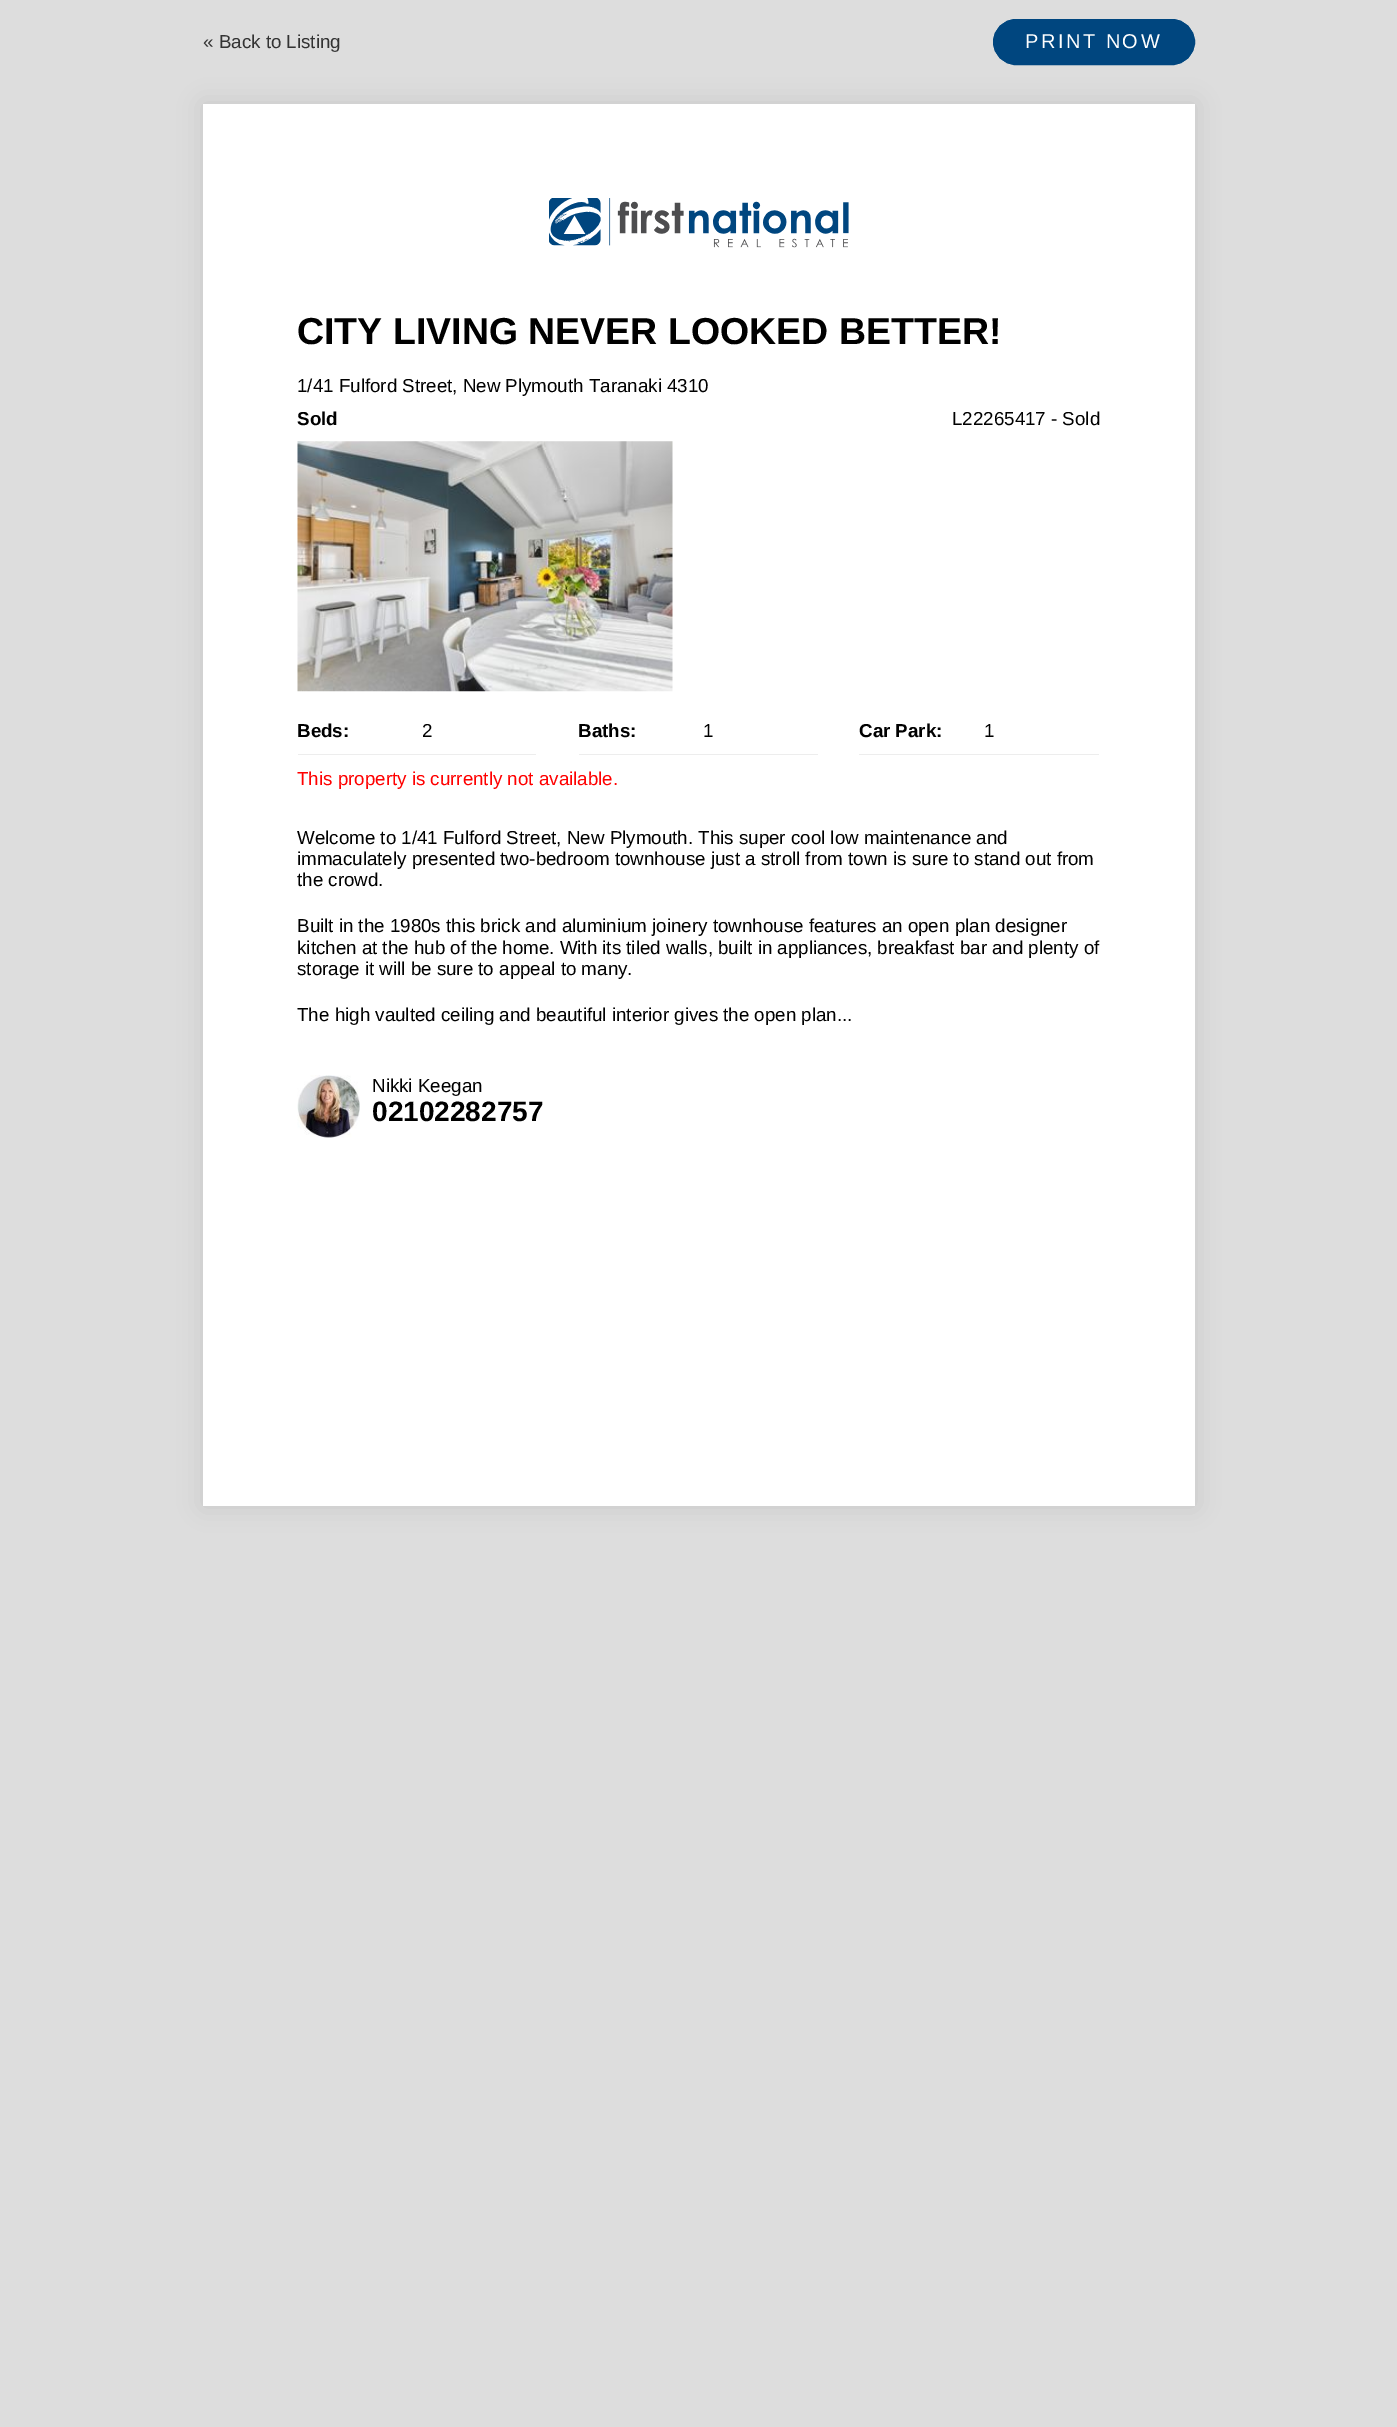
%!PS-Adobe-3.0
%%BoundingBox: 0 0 1397 2427
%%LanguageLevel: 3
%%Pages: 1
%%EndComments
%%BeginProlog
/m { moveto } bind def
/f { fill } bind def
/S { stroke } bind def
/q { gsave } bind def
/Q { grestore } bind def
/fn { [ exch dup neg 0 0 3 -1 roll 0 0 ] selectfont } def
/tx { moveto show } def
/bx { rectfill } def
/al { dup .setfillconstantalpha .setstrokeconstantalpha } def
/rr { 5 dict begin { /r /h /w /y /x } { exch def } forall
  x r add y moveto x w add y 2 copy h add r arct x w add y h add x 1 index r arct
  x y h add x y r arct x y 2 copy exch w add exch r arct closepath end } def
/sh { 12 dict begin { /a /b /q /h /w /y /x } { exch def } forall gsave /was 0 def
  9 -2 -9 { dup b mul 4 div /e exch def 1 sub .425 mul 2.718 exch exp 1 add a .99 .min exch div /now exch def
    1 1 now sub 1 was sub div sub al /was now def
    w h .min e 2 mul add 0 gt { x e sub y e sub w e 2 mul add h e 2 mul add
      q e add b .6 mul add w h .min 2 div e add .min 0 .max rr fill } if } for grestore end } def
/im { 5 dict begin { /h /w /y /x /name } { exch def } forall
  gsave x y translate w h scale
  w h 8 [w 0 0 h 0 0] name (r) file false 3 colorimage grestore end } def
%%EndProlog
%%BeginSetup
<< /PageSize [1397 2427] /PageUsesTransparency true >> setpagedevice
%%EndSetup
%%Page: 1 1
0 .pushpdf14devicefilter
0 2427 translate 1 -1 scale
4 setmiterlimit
0.867 setgray
0 0 1397 2427 bx
/LiberationSans-Regular 18.75 fn
0.2 setgray
(« Back to Listing) 203 48 tx
0 0.275 0.498 setrgbcolor
993.5 19.5 201 45 22.5 rr q f Q
S
/LiberationSans-Regular 20 fn
1 setgray
1025 48 m 2.5 0 (PRINT NOW) ashow
0 setgray
203 104 992 1402 0 12 0.1 sh
1 setgray
203 104 992 1402 bx
(image0.raw) 549 198 300 50 im
/LiberationSans-Bold 37.5 fn
0 setgray
(CITY LIVING NEVER LOOKED BETTER!) 297 344 tx
/LiberationSans-Regular 18.75 fn
(1/41 Fulford Street, New Plymouth Taranaki 4310) 297 392 tx
/LiberationSans-Bold 18.75 fn
(Sold) 297 425 tx
/LiberationSans-Regular 18.75 fn
(L22265417 - Sold) 952 425 tx
(image1.raw) 297 441 376 251 im
0.929 setgray
298 754 238 1 bx
/LiberationSans-Bold 18.75 fn
0 setgray
(Beds:) 297 737 tx
/LiberationSans-Regular 18.75 fn
(2) 422 737 tx
0.929 setgray
579 754 239 1 bx
/LiberationSans-Bold 18.75 fn
0 setgray
(Baths:) 578 737 tx
/LiberationSans-Regular 18.75 fn
(1) 703 737 tx
0.929 setgray
859 754 240 1 bx
/LiberationSans-Bold 18.75 fn
0 setgray
(Car Park:) 859 737 tx
/LiberationSans-Regular 18.75 fn
(1) 984 737 tx
1 0 0 setrgbcolor
(This property is currently not available.) 297 785 tx
0 setgray
(Welcome to 1/41 Fulford Street, New Plymouth. This super cool low maintenance and) 297 844 tx
(immaculately presented two-bedroom townhouse just a stroll from town is sure to stand out from) 297 865 tx
(the crowd.) 297 886 tx
(Built in the 1980s this brick and aluminium joinery townhouse features an open plan designer) 297 932 tx
(kitchen at the hub of the home. With its tiled walls, built in appliances, breakfast bar and plenty of) 297 954 tx
(storage it will be sure to appeal to many.) 297 975 tx
(The high vaulted ceiling and beautiful interior gives the open plan...) 297 1021 tx
(image2.raw) 297 1075 63 63 im
(Nikki Keegan) 372 1092 tx
/LiberationSans-Bold 28 fn
(02102282757) 372 1121 tx
.poppdf14devicefilter showpage
%%EOF
